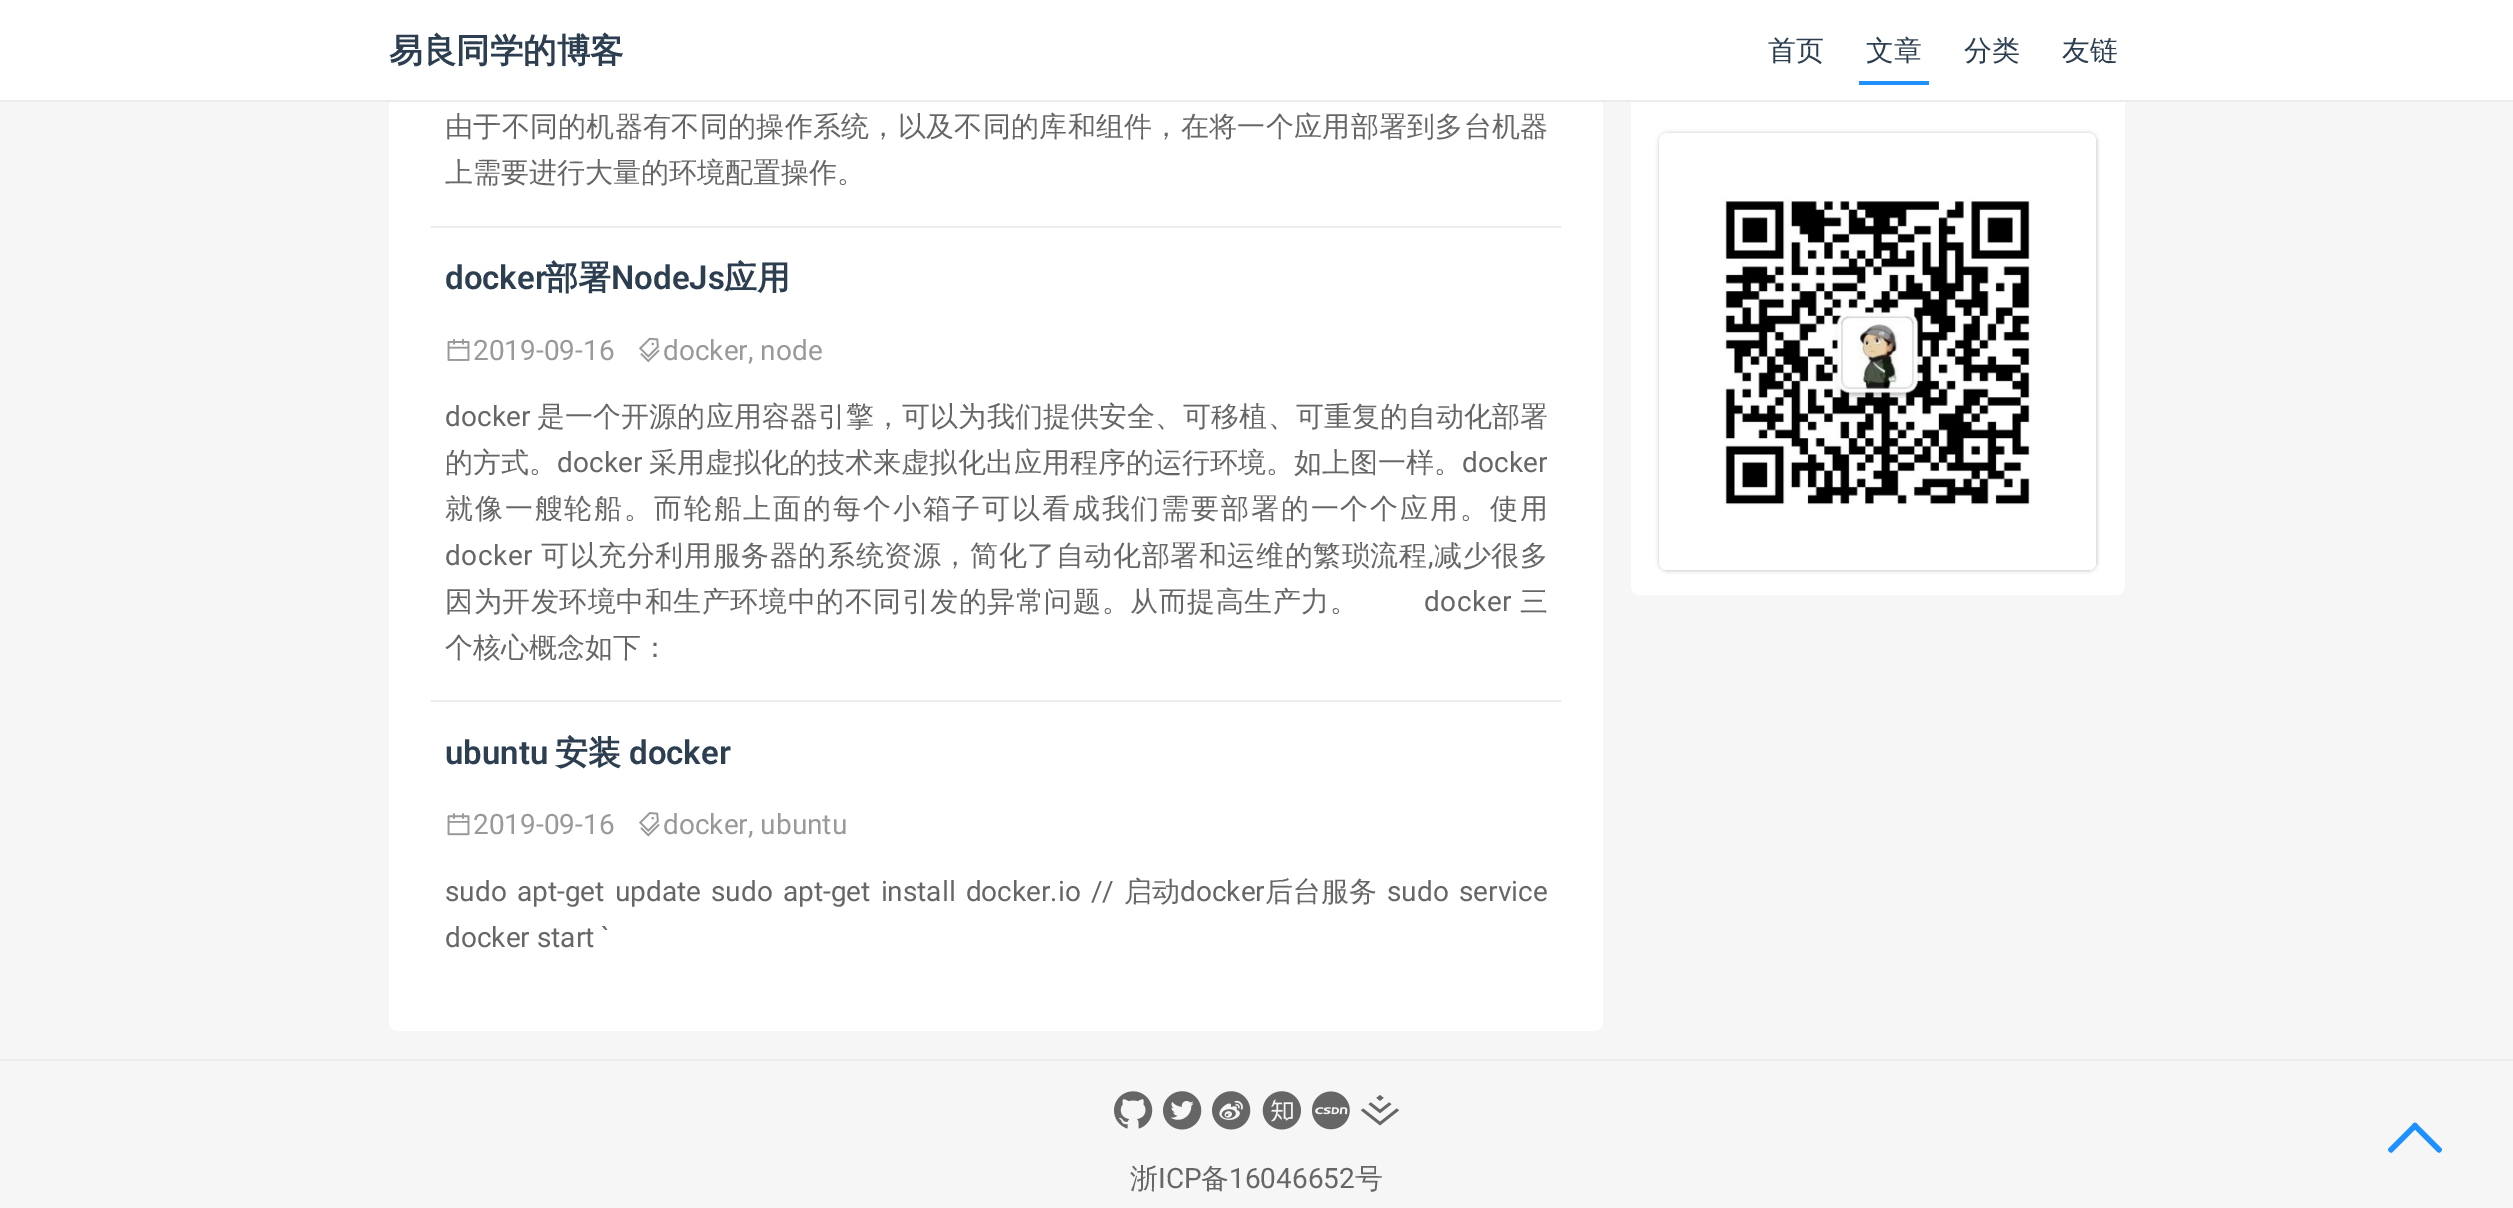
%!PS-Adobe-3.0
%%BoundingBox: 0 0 2513 1208
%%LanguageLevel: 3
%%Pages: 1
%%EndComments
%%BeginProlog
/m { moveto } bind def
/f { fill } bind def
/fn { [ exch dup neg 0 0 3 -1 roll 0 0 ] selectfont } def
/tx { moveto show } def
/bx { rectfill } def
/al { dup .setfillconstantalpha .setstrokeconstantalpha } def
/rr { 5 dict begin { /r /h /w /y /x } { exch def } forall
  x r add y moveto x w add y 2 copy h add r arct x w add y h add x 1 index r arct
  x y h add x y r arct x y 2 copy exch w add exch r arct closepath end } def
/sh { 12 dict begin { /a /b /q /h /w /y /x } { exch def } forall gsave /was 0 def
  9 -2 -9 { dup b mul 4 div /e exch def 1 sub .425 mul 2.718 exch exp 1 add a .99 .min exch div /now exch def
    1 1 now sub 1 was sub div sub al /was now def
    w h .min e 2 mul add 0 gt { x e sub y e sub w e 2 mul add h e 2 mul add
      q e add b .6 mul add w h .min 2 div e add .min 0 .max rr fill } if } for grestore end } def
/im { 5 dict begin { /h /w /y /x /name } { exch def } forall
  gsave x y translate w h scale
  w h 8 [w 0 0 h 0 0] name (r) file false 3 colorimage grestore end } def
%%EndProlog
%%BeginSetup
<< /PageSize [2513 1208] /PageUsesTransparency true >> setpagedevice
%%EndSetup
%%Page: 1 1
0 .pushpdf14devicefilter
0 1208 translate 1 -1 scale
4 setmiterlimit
0.965 setgray
0 0 2513 1208 bx
1 setgray
389 -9 1214 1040 9 rr f
1631 33 494 562 9 rr f
0 0 2513 100 bx
0.918 0.925 0.937 setrgbcolor
0 100 2513 2 bx
/WenQuanYiZenHei-Bold 33.5 fn
0.173 0.243 0.314 setrgbcolor
(易良同学的博客) 389 62 tx
/WenQuanYiZenHei-Medium 28 fn
(首页) 1768 60 tx
0.118 0.565 1 setrgbcolor
1859 81 70 4 bx
0.173 0.243 0.314 setrgbcolor
(文章) 1866 60 tx
(分类) 1964 60 tx
(友链) 2062 60 tx
0.4 setgray
445 136 m 0.3 0 (由于不同的机器有不同的操作系统，以及不同的库和组件，在将一个应用部署到多台机器) ashow
(上需要进行大量的环境配置操作。) 445 182 tx
0.918 0.925 0.937 setrgbcolor
431 226 1130 2 bx
/Roboto-SemiBold 33 fn
0.173 0.243 0.314 setrgbcolor
(docker) 445 289 tx
/WenQuanYiZenHei-Bold 33 fn
(部署) 545 289 tx
/Roboto-SemiBold 33 fn
(NodeJs) 611 289 tx
/WenQuanYiZenHei-Bold 33 fn
(应用) 724 289 tx
(image0.raw) 447 339 23 22 im
/Roboto-Regular 28 fn
0.6 setgray
(2019-09-16) 473 360 tx
(image1.raw) 639 337 21 26 im
(docker, node) 663 360 tx
0.4 setgray
445 426 m 0.1 0 (docker) ashow
/WenQuanYiZenHei-Medium 28 fn
537 426 m 0.1 0 (是一个开源的应用容器引擎，可以为我们提供安全、可移植、可重复的自动化部署) ashow
445 472 m 0.05 0 (的方式。) ashow
/Roboto-Regular 28 fn
557 472 m 0.05 0 (docker) ashow
/WenQuanYiZenHei-Medium 28 fn
649 472 m 0.05 0 (采用虚拟化的技术来虚拟化出应用程序的运行环境。如上图一样。) ashow
/Roboto-Regular 28 fn
1462 472 m 0.05 0 (docker) ashow
/WenQuanYiZenHei-Medium 28 fn
445 518 m 1.85 0 (就像一艘轮船。而轮船上面的每个小箱子可以看成我们需要部署的一个个应用。使用) ashow
/Roboto-Regular 28 fn
445 565 m 0.6 0 (docker) ashow
/WenQuanYiZenHei-Medium 28 fn
541 565 m 0.6 0 (可以充分利用服务器的系统资源，简化了自动化部署和运维的繁琐流程) ashow
/Roboto-Regular 28 fn
1428 565 m 0.6 0 (,) ashow
/WenQuanYiZenHei-Medium 28 fn
1434 565 m 0.6 0 (减少很多) ashow
445 611 m 0.55 0 (因为开发环境中和生产环境中的不同引发的异常问题。从而提高生产力。) ashow
/Roboto-Regular 28 fn
1424 611 m 0.55 0 (docker) ashow
/WenQuanYiZenHei-Medium 28 fn
1520 611 m 0.55 0 (三) ashow
(个核心概念如下：) 445 657 tx
0.918 0.925 0.937 setrgbcolor
431 700 1130 2 bx
/Roboto-SemiBold 33 fn
0.173 0.243 0.314 setrgbcolor
(ubuntu) 445 764 tx
/WenQuanYiZenHei-Bold 33 fn
(安装) 555 764 tx
/Roboto-SemiBold 33 fn
(docker) 629 764 tx
(image2.raw) 447 813 23 23 im
/Roboto-Regular 28 fn
0.6 setgray
(2019-09-16) 473 834 tx
(image3.raw) 639 812 21 25 im
(docker, ubuntu) 663 834 tx
0.4 setgray
445 901 m 3.25 0 32 (sudo apt-get update sudo apt-get install docker.io //) widthshow
/WenQuanYiZenHei-Medium 28 fn
(启动) 1124 901 tx
/Roboto-Regular 28 fn
(docker) 1180 901 tx
/WenQuanYiZenHei-Medium 28 fn
(后台服务) 1265 901 tx
/Roboto-Regular 28 fn
1387 901 m 3.25 0 32 (sudo service) widthshow
(docker start `) 445 947 tx
0 setgray
1659 133 438 438 9 2 0.2 sh
(image4.raw) 1659 133 437 437 im
0.918 0.925 0.937 setrgbcolor
0 1059 2513 2 bx
(image5.raw) 1114 1091 39 38 im
(image6.raw) 1163 1091 39 39 im
(image7.raw) 1212 1091 39 39 im
(image8.raw) 1262 1091 39 39 im
(image9.raw) 1311 1091 39 39 im
(image10.raw) 1360 1095 40 31 im
/WenQuanYiZenHei-Medium 28 fn
0.4 setgray
(浙) 1130 1188 tx
/Roboto-Regular 28 fn
(ICP) 1158 1188 tx
/WenQuanYiZenHei-Medium 28 fn
(备) 1201 1188 tx
/Roboto-Regular 28 fn
(16046652) 1229 1188 tx
/WenQuanYiZenHei-Medium 28 fn
(号) 1355 1188 tx
(image11.raw) 2388 1122 54 31 im
.poppdf14devicefilter showpage
%%EOF
